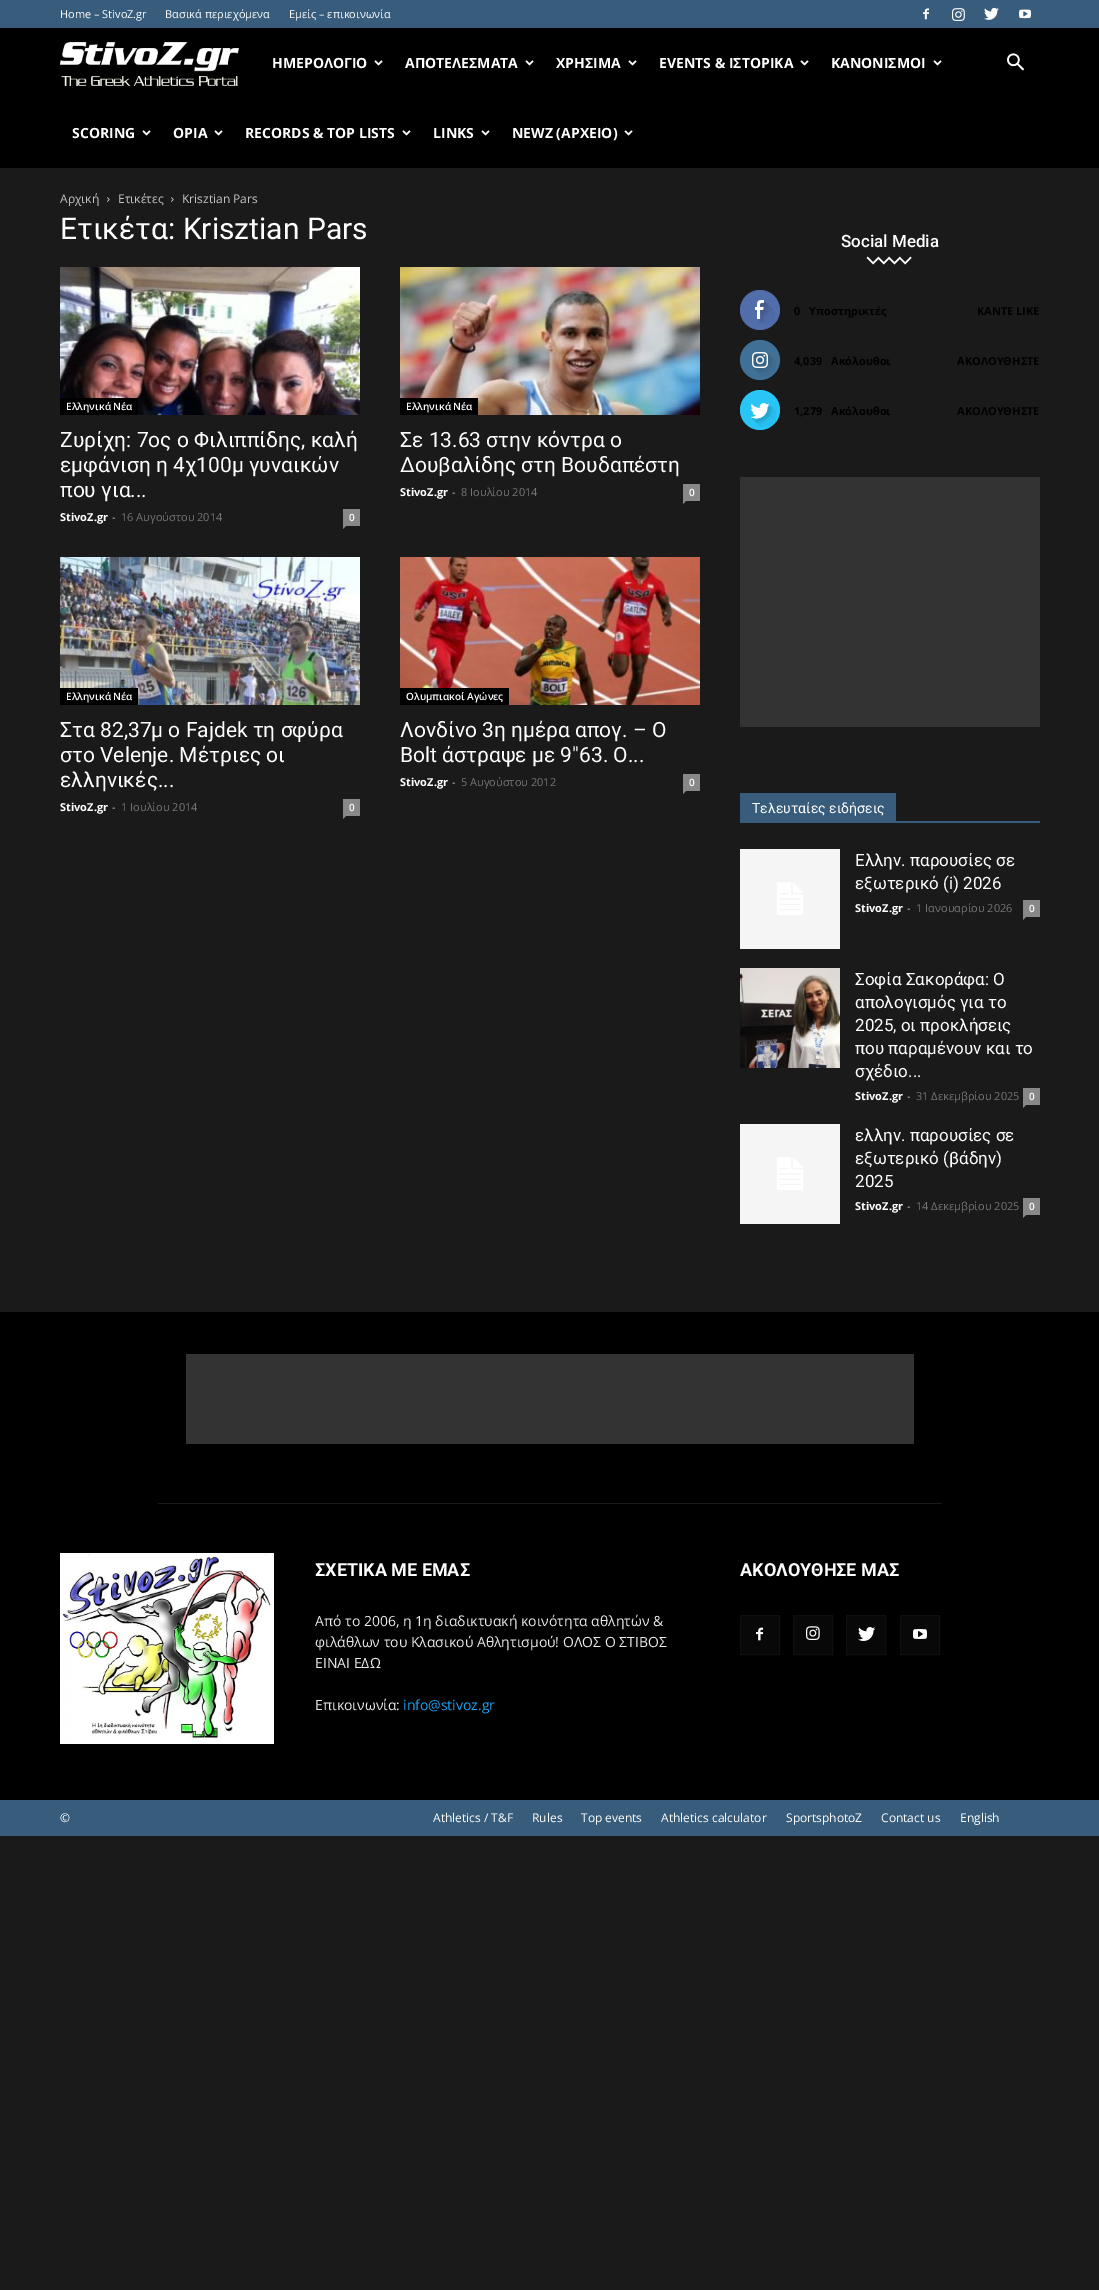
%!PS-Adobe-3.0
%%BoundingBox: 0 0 1099 2290
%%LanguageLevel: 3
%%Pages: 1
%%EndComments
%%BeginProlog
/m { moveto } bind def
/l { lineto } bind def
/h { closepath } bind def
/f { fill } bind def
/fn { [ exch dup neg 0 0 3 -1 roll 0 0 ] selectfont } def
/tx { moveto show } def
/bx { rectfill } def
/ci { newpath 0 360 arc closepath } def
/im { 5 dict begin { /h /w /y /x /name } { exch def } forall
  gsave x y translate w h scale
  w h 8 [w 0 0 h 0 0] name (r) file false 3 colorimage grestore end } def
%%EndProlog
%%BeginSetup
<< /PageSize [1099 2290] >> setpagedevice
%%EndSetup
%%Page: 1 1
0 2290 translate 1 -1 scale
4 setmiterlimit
0.102 setgray
0 0 1099 2290 bx
0.22 0.361 0.482 setrgbcolor
0 0 1099 28 bx
/OpenSans-Regular 11 fn
1 setgray
(Home – StivoZ.gr) 60 18 tx
(Βασικά περιεχόμενα) 165 18 tx
(Εμείς – επικοινωνία) 289 18 tx
(image0.raw) 923 8 6 12 im
(image1.raw) 952 8 13 13 im
(image2.raw) 984 7 15 13 im
(image3.raw) 1019 9 12 10 im
0 setgray
0 28 1099 140 bx
(image4.raw) 60 42 179 44 im
/OpenSans-Bold 14 fn
1 setgray
(ΗΜΕΡΟΛΟΓΙΟ) 272 68 tx
(image5.raw) 374 60 9 6 im
(ΑΠΟΤΕΛΕΣΜΑΤΑ) 405 68 tx
(image5.raw) 525 60 9 6 im
(ΧΡΗΣΙΜΑ) 556 68 tx
(image5.raw) 628 60 9 6 im
(EVENTS & ΙΣΤΟΡΙΚΑ) 659 68 tx
(image5.raw) 800 60 9 6 im
(ΚΑΝΟΝΙΣΜΟΙ) 831 68 tx
(image5.raw) 933 60 9 6 im
(SCORING) 72 138 tx
(image5.raw) 142 130 9 6 im
(ΟΡΙΑ) 173 138 tx
(image5.raw) 214 130 9 6 im
(RECORDS & TOP LISTS) 245 138 tx
(image5.raw) 402 130 9 6 im
(LINKS) 433 138 tx
(image5.raw) 481 130 9 6 im
(NEWZ \(ΑΡΧΕΙΟ\)) 512 138 tx
(image5.raw) 624 130 9 6 im
(image6.raw) 1007 53 17 18 im
/OpenSans-Regular 12 fn
0.765 setgray
(Αρχική) 60 203 tx
(image7.raw) 107 197 3 5 im
(Ετικέτες) 118 203 tx
(image7.raw) 171 197 3 5 im
(Krisztian Pars) 182 203 tx
/Roboto-Regular 30 fn
1 setgray
(Ετικέτα: Krisztian Pars) 60 239 tx
(image8.raw) 60 267 300 148 im
0 setgray
60 398 78 17 bx
/OpenSans-SemiBold 10 fn
1 setgray
(Ελληνικά Νέα) 66 410 tx
/Roboto-Regular 21 fn
(Ζυρίχη: 7ος ο Φιλιππίδης, καλή) 60 447 tx
(εμφάνιση η 4χ100μ γυναικών) 60 472 tx
(που για...) 60 497 tx
/OpenSans-Bold 11 fn
(StivoZ.gr) 60 521 tx
/OpenSans-Regular 11 fn
0.8 setgray
(-) 112 521 tx
0.463 setgray
(16 Αυγούστου 2014) 121 521 tx
0.533 setgray
343 509 17 17 bx
/OpenSans-SemiBold 10 fn
1 setgray
(0) 349 521 tx
0.533 setgray
343 526 m 346 526 l 343 529 l h f
(image9.raw) 400 267 300 148 im
0 setgray
400 398 78 17 bx
1 setgray
(Ελληνικά Νέα) 406 410 tx
/Roboto-Regular 21 fn
(Σε 13.63 στην κόντρα ο) 400 447 tx
(Δουβαλίδης στη Βουδαπέστη) 400 472 tx
/OpenSans-Bold 11 fn
(StivoZ.gr) 400 496 tx
/OpenSans-Regular 11 fn
0.8 setgray
(-) 452 496 tx
0.463 setgray
(8 Ιουλίου 2014) 461 496 tx
0.533 setgray
683 484 17 17 bx
/OpenSans-SemiBold 10 fn
1 setgray
(0) 689 496 tx
0.533 setgray
683 501 m 686 501 l 683 504 l h f
(image10.raw) 60 557 300 148 im
0 setgray
60 688 78 17 bx
1 setgray
(Ελληνικά Νέα) 66 700 tx
/Roboto-Regular 21 fn
(Στα 82,37μ ο Fajdek τη σφύρα) 60 737 tx
(στο Velenje. Μέτριες οι) 60 762 tx
(ελληνικές...) 60 787 tx
/OpenSans-Bold 11 fn
(StivoZ.gr) 60 811 tx
/OpenSans-Regular 11 fn
0.8 setgray
(-) 112 811 tx
0.463 setgray
(1 Ιουλίου 2014) 121 811 tx
0.533 setgray
343 799 17 17 bx
/OpenSans-SemiBold 10 fn
1 setgray
(0) 349 811 tx
0.533 setgray
343 816 m 346 816 l 343 819 l h f
(image11.raw) 400 557 300 148 im
0 setgray
400 688 109 17 bx
1 setgray
(Ολυμπιακοί Αγώνες) 406 700 tx
/Roboto-Regular 21 fn
(Λονδίνο 3η ημέρα απογ. – Ο) 400 737 tx
(Bolt άστραψε με 9"63. Ο...) 400 762 tx
/OpenSans-Bold 11 fn
(StivoZ.gr) 400 786 tx
/OpenSans-Regular 11 fn
0.8 setgray
(-) 452 786 tx
0.463 setgray
(5 Αυγούστου 2012) 461 786 tx
0.533 setgray
683 774 17 17 bx
/OpenSans-SemiBold 10 fn
1 setgray
(0) 689 786 tx
0.533 setgray
683 791 m 686 791 l 683 794 l h f
/Roboto-Medium 17 fn
1 setgray
(Social Media) 841 247 tx
(image12.raw) 866 256 46 9 im
0.318 0.431 0.671 setrgbcolor
760 310 20 ci f
(image13.raw) 755 300 20 25 im
/OpenSans-Bold 11 fn
0 setgray
(0) 794 315 tx
(Υποστηρικτές) 809 315 tx
(ΚΑΝΤΕ LIKE) 977 315 tx
0.255 0.439 0.588 setrgbcolor
760 360 20 ci f
(image14.raw) 752 352 24 24 im
0 setgray
(4,039) 794 365 tx
(Ακόλουθοι) 831 365 tx
(ΑΚΟΛΟΥΘΗΣΤΕ) 957 365 tx
0.161 0.773 0.965 setrgbcolor
760 410 20 ci f
(image15.raw) 750 403 26 24 im
0 setgray
(1,279) 794 415 tx
(Ακόλουθοι) 831 415 tx
(ΑΚΟΛΟΥΘΗΣΤΕ) 957 415 tx
0.2 setgray
740 477 300 250 bx
0.22 0.361 0.482 setrgbcolor
740 821 300 2 bx
740 793 156 28 bx
/Roboto-Regular 14 fn
1 setgray
(Τελευταίες ειδήσεις) 752 813 tx
(image16.raw) 740 849 100 100 im
/Roboto-Regular 17 fn
(Ελλην. παρουσίες σε) 855 866 tx
(εξωτερικό \(i\) 2026) 855 889 tx
/OpenSans-Bold 11 fn
(StivoZ.gr) 855 912 tx
/OpenSans-Regular 11 fn
0.8 setgray
(-) 907 912 tx
0.463 setgray
(1 Ιανουαρίου 2026) 916 912 tx
0.533 setgray
1023 900 17 17 bx
/OpenSans-SemiBold 10 fn
1 setgray
(0) 1029 912 tx
0.533 setgray
1023 917 m 1026 917 l 1023 920 l h f
(image17.raw) 740 968 100 100 im
/Roboto-Regular 17 fn
1 setgray
(Σοφία Σακοράφα: Ο) 855 985 tx
(απολογισμός για το) 855 1008 tx
(2025, οι προκλήσεις) 855 1031 tx
(που παραμένουν και το) 855 1054 tx
(σχέδιο...) 855 1077 tx
/OpenSans-Bold 11 fn
(StivoZ.gr) 855 1100 tx
/OpenSans-Regular 11 fn
0.8 setgray
(-) 907 1100 tx
0.463 setgray
(31 Δεκεμβρίου 2025) 916 1100 tx
0.533 setgray
1023 1088 17 17 bx
/OpenSans-SemiBold 10 fn
1 setgray
(0) 1029 1100 tx
0.533 setgray
1023 1105 m 1026 1105 l 1023 1108 l h f
(image16.raw) 740 1124 100 100 im
/Roboto-Regular 17 fn
1 setgray
(ελλην. παρουσίες σε) 855 1141 tx
(εξωτερικό \(βάδην\)) 855 1164 tx
(2025) 855 1187 tx
/OpenSans-Bold 11 fn
(StivoZ.gr) 855 1210 tx
/OpenSans-Regular 11 fn
0.8 setgray
(-) 907 1210 tx
0.463 setgray
(14 Δεκεμβρίου 2025) 916 1210 tx
0.533 setgray
1023 1198 17 17 bx
/OpenSans-SemiBold 10 fn
1 setgray
(0) 1029 1210 tx
0.533 setgray
1023 1215 m 1026 1215 l 1023 1218 l h f
0 setgray
0 1312 1099 488 bx
0.2 setgray
186 1354 728 90 bx
0.102 setgray
158 1503 784 1 bx
(image18.raw) 60 1553 214 191 im
/Roboto-Bold 18 fn
1 setgray
(ΣΧΕΤΙΚΑ ΜΕ ΕΜΑΣ) 315 1576 tx
/OpenSans-Regular 14 fn
0.918 setgray
(Από το 2006, η 1η διαδικτυακή κοινότητα αθλητών &) 315 1626 tx
(φιλάθλων του Κλασικού Αθλητισμού! ΟΛΟΣ Ο ΣΤΙΒΟΣ) 315 1647 tx
(ΕΙΝΑΙ ΕΔΩ) 315 1668 tx
(Επικοινωνία:) 315 1710 tx
0.114 0.631 0.949 setrgbcolor
(info@stivoz.gr) 403 1710 tx
/Roboto-Bold 18 fn
1 setgray
(ΑΚΟΛΟΥΘΗΣΕ ΜΑΣ) 740 1576 tx
0.031 setgray
741 1616 38 38 bx
(image19.raw) 756 1627 7 14 im
0.059 setgray
740.5 1615.5 39 39 rectstroke
0.031 setgray
794 1616 38 38 bx
(image20.raw) 806 1626 14 14 im
0.059 setgray
793.5 1615.5 39 39 rectstroke
0.031 setgray
847 1616 38 38 bx
(image21.raw) 858 1627 18 14 im
0.059 setgray
846.5 1615.5 39 39 rectstroke
0.031 setgray
901 1616 38 38 bx
(image22.raw) 913 1629 14 10 im
0.059 setgray
900.5 1615.5 39 39 rectstroke
0.22 0.361 0.482 setrgbcolor
0 1800 1099 36 bx
/OpenSans-Regular 12 fn
1 setgray
(©) 60 1822 tx
(Athletics / T&F) 433 1822 tx
(Rules) 532 1822 tx
(Top events) 581 1822 tx
(Athletics calculator) 661 1822 tx
(SportsphotoZ) 786 1822 tx
(Contact us) 881 1822 tx
(English) 960 1822 tx
showpage
%%EOF
